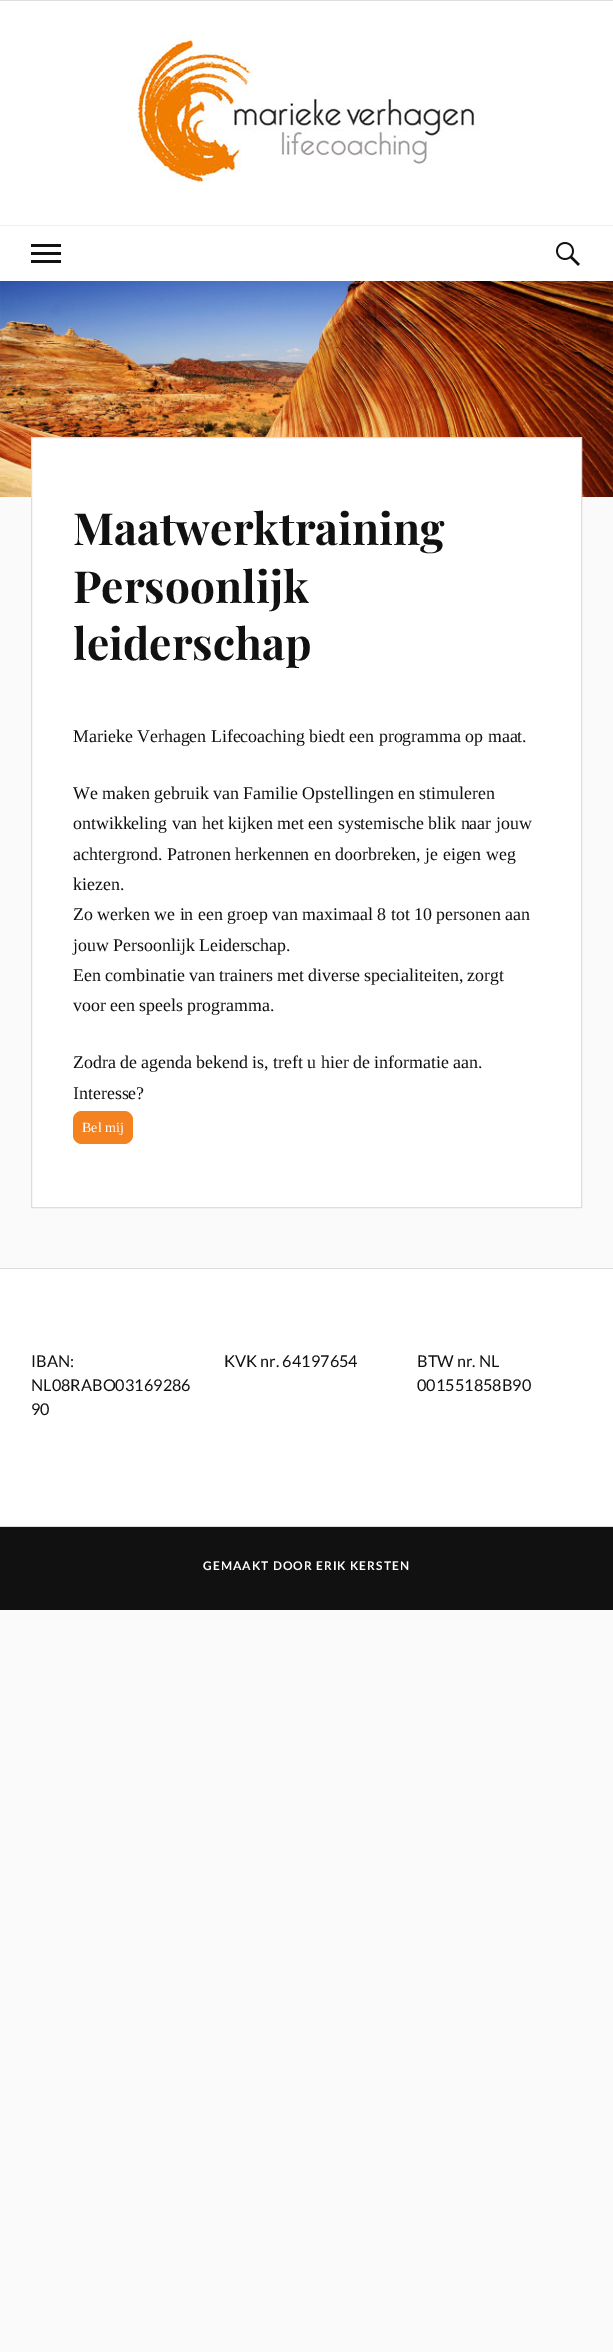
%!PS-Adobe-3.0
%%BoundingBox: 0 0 613 2352
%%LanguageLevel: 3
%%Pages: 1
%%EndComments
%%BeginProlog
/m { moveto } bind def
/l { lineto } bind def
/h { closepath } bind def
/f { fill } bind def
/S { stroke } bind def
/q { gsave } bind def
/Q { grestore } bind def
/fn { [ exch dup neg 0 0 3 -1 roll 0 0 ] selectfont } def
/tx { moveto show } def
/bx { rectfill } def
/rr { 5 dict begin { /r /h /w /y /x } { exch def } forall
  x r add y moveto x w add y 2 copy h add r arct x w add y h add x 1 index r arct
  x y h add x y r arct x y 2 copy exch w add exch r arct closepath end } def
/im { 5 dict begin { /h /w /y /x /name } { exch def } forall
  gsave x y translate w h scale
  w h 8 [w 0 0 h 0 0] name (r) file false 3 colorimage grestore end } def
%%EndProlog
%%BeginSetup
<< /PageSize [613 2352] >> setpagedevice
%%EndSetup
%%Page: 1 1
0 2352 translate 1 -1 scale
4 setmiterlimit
0.98 setgray
0 0 613 2352 bx
0.867 setgray
0 0 613 1 bx
1 setgray
0 1 613 224 bx
(image0.raw) 137 36 342 150 im
0 226 613 55 bx
0.933 setgray
0 225 613 1 bx
0.067 setgray
31 244 30 3 bx
31 252 30 3 bx
31 260 30 3 bx
(image1.raw) 556 242 24 24 im
(image2.raw) 0 281 613 216 im
1 setgray
31.5 437.5 m 581.5 437.5 l 581.5 1207.5 l 31.5 1207.5 l h q f Q
0.867 setgray
S
/PlayfairDisplay-Bold 44.25 fn
0.067 setgray
(Maatwerktraining) 73 545 tx
(Persoonlijk) 73 603 tx
(leiderschap) 73 660 tx
/LiberationSerif-Regular 17.85 fn
(Marieke Verhagen Lifecoaching biedt een programma op maat.) 73 742 tx
(We maken gebruik van Familie Opstellingen en stimuleren) 73 799 tx
(ontwikkeling van het kijken met een systemische blik naar jouw) 73 829 tx
(achtergrond. Patronen herkennen en doorbreken, je eigen weg) 73 860 tx
(kiezen.) 73 890 tx
(Zo werken we in een groep van maximaal 8 tot 10 personen aan) 73 920 tx
(jouw Persoonlijk Leiderschap.) 73 951 tx
(Een combinatie van trainers met diverse specialiteiten, zorgt) 73 981 tx
(voor een speels programma.) 73 1011 tx
(Zodra de agenda bekend is, treft u hier de informatie aan.) 73 1068 tx
(Interesse?) 73 1099 tx
0.957 0.51 0.129 setrgbcolor
73 1111 60 33 9 rr f
/LiberationSerif-Regular 14 fn
1 setgray
(Bel mij) 82 1132 tx
0 1269 613 257 bx
0.867 setgray
0 1268 613 1 bx
0 1526 613 1 bx
/Lato-Regular 16.25 fn
0.067 setgray
(IBAN:) 31 1367 tx
(NL08RABO03169286) 31 1391 tx
(90) 31 1415 tx
(KVK nr. 64197654) 224 1367 tx
(BTW nr. NL) 417 1367 tx
(001551858B90) 417 1391 tx
0 1527 613 83 bx
/Lato-Bold 12 fn
1 setgray
203 1570 m 1 0 (GEMAAKT DOOR ERIK KERSTEN) ashow
showpage
%%EOF
